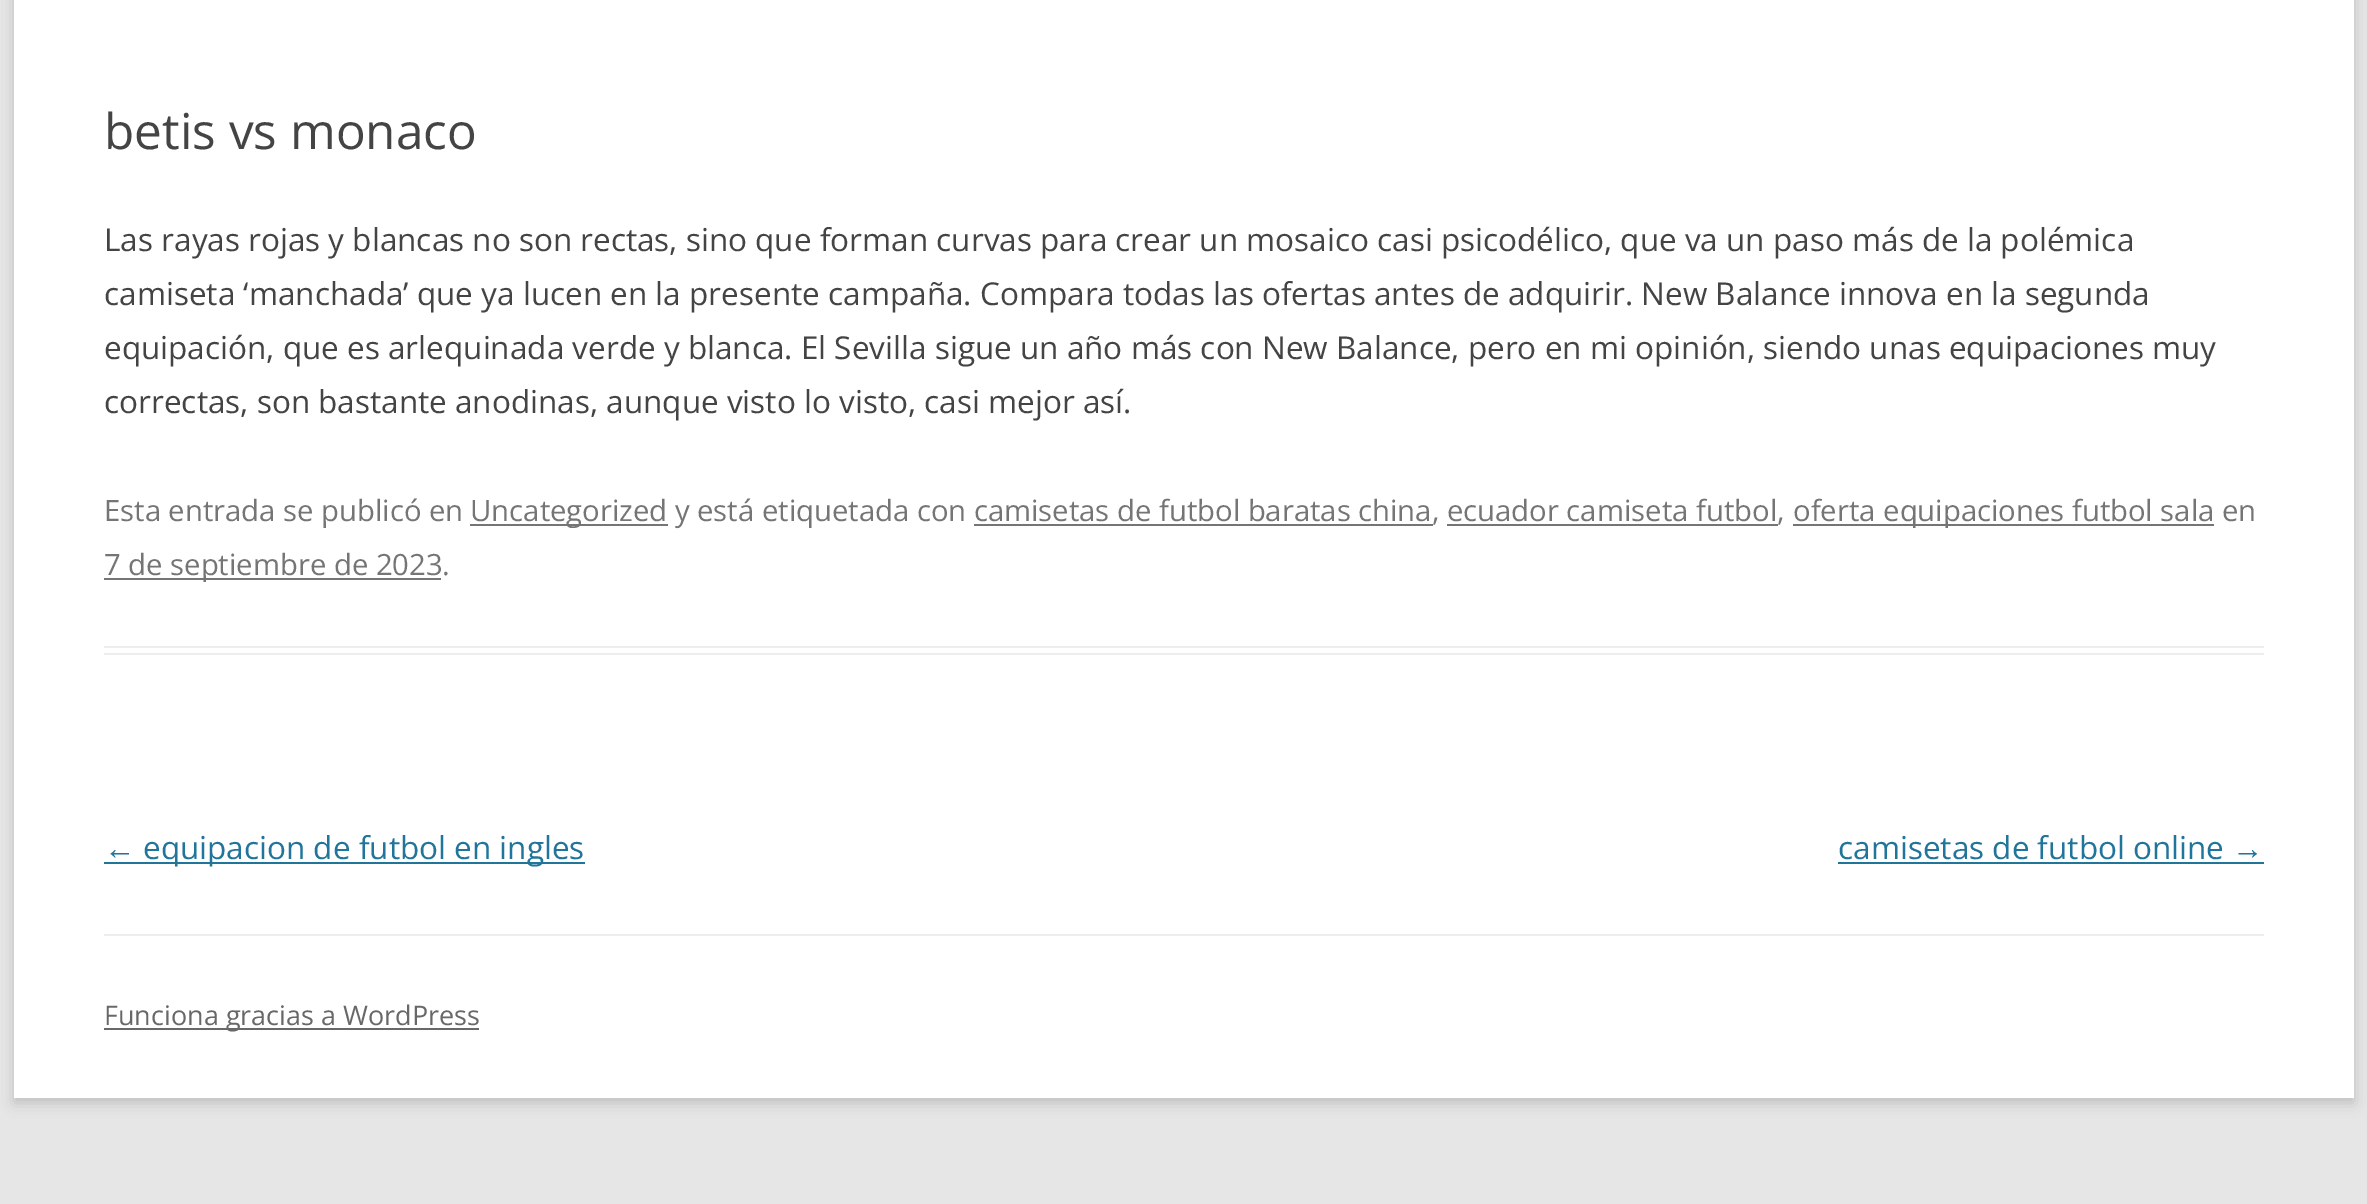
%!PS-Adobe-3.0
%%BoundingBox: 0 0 2367 1204
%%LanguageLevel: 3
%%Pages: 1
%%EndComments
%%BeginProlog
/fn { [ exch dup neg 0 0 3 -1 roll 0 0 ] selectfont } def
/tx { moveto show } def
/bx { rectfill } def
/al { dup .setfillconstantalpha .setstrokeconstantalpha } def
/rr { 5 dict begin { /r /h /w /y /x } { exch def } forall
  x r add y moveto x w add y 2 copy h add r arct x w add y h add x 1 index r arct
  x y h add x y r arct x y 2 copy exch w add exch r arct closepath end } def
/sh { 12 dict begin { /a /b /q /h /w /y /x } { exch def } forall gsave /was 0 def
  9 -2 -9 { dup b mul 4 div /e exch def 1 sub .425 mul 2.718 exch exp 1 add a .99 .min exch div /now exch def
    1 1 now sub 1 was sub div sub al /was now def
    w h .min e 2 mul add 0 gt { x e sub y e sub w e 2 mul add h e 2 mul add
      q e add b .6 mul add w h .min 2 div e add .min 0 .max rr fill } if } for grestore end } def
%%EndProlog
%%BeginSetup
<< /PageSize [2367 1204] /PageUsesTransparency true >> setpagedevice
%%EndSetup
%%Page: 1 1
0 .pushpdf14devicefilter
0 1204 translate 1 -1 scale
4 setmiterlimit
0.902 setgray
0 0 2367 1204 bx
0.392 setgray
14 -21 2340 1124 0 7 0.3 sh
1 setgray
14 0 2340 1098 bx
0.929 setgray
104 646 2160 2 bx
104 653 2160 2 bx
/OpenSans-Regular 49.5 fn
0.267 setgray
(betis vs monaco) 104 149 tx
/OpenSans-Regular 31.5 fn
(Las rayas rojas y blancas no son rectas, sino que forman curvas para crear un mosaico casi psicodélico, que va un paso más de la polémica) 104 251 tx
(camiseta ‘manchada’ que ya lucen en la presente campaña. Compara todas las ofertas antes de adquirir. New Balance innova en la segunda) 104 305 tx
(equipación, que es arlequinada verde y blanca. El Sevilla sigue un año más con New Balance, pero en mi opinión, siendo unas equipaciones muy) 104 359 tx
(correctas, son bastante anodinas, aunque visto lo visto, casi mejor así.) 104 413 tx
/OpenSans-Regular 29.25 fn
0.459 setgray
(Esta entrada se publicó en) 104 521 tx
470 524 198 2 bx
(Uncategorized y está etiquetada con camisetas de futbol baratas china, ecuador camiseta futbol,) 470 521 tx
1793 524 421 2 bx
(oferta equipaciones futbol sala en) 1793 521 tx
974 524 459 2 bx
1447 524 331 2 bx
104 578 337 2 bx
(7 de septiembre de 2023.) 104 575 tx
/LiberationSans-Regular 31.5 fn
0.129 0.459 0.608 setrgbcolor
(←) 104 859 tx
104 862 481 2 bx
/OpenSans-Regular 31.5 fn
(equipacion de futbol en ingles) 143 859 tx
(camisetas de futbol online) 1838 859 tx
/LiberationSans-Regular 31.5 fn
(→) 2232 859 tx
1838 862 426 2 bx
0.929 setgray
104 934 2160 2 bx
0.408 setgray
104 1028 375 2 bx
/OpenSans-Regular 27 fn
(Funciona gracias a WordPress) 104 1025 tx
.poppdf14devicefilter showpage
%%EOF
